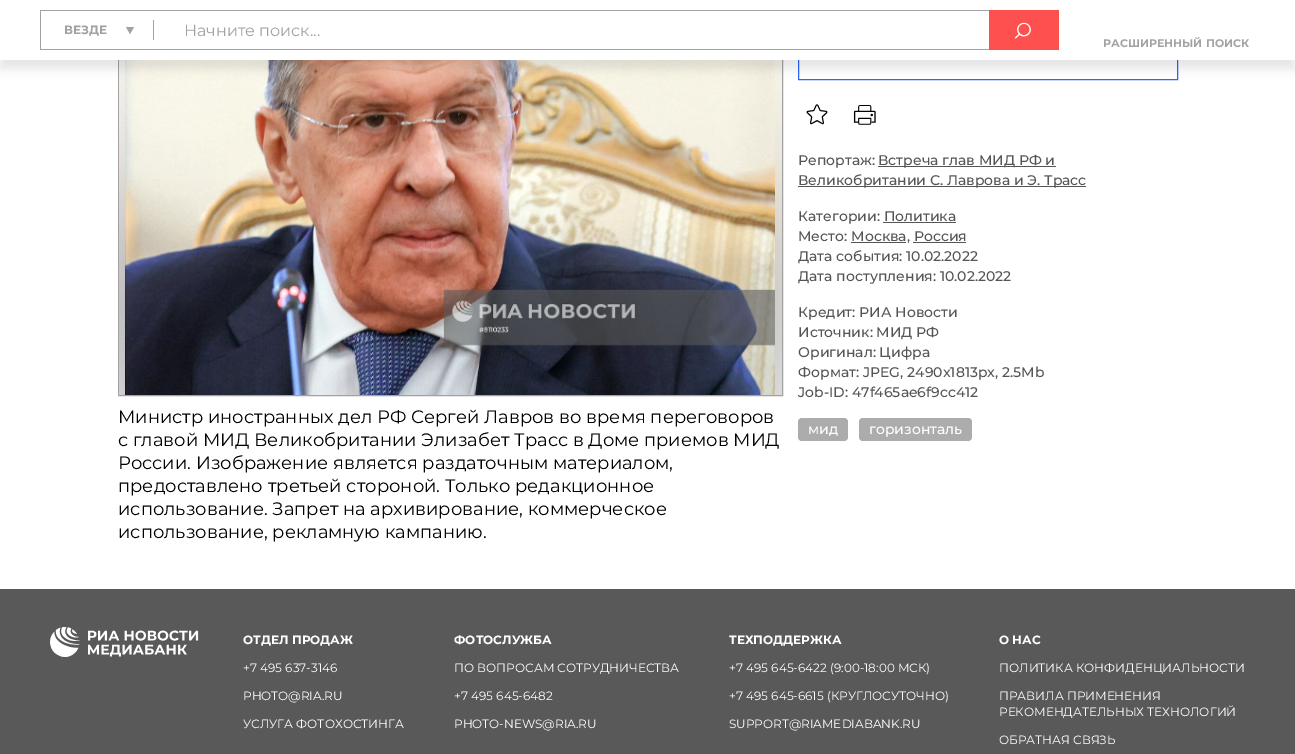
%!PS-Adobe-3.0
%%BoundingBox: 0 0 1295 754
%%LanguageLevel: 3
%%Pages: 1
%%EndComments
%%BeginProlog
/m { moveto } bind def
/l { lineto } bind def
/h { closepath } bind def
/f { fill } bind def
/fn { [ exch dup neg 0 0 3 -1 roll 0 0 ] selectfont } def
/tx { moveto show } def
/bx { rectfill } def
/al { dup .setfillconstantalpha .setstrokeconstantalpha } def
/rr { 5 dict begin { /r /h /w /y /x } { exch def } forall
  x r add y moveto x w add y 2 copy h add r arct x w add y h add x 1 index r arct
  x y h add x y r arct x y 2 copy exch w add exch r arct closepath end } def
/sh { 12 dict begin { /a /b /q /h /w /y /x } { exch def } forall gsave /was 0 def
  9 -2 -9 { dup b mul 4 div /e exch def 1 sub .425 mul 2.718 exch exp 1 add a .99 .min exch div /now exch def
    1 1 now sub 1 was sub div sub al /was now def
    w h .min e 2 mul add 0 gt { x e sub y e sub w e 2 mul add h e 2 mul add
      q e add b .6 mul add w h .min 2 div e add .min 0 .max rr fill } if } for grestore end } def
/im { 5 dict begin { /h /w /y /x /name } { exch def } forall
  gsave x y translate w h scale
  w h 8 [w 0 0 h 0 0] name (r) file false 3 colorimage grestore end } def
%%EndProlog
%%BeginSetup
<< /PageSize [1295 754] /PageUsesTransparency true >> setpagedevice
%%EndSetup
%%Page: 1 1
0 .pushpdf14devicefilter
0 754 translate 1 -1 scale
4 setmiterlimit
1 setgray
0 0 1295 754 bx
0.157 0.392 1 setrgbcolor
798.5 40.5 379 39 rectstroke
0.639 0.635 0.635 setrgbcolor
118.5 -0.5 664 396 rectstroke
(image3.raw) 119 60 663 335 im
(image4.raw) 125 60 650 335 im
0 setgray
0 -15 1295 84 0 5 0.1 sh
1 setgray
0 0 1295 60 bx
0.639 0.635 0.635 setrgbcolor
40 10 949 1 bx
40 49 949 1 bx
40 10 1 40 bx
/Montserrat-Bold 12 fn
(ВЕЗДЕ) 64 34 tx
126 27 m 134 27 l 130 34 l h f
153 20 1 20 bx
/Montserrat-Regular 16 fn
(Начните поиск...) 184 36 tx
1 0.314 0.314 setrgbcolor
989 10 70 40 bx
(image0.raw) 1014 22 17 17 im
/Montserrat-Bold 11 fn
0.639 0.635 0.635 setrgbcolor
(РАСШИРЕННЫЙ ПОИСК) 1103 47 tx
(image1.raw) 806 104 22 21 im
(image2.raw) 853 105 23 20 im
/Montserrat-Medium 14 fn
0.333 setgray
(Репортаж:) 798 165 tx
878 166 178 1 bx
(Встреча глав МИД РФ и) 878 165 tx
798 186 288 1 bx
(Великобритании С. Лаврова и Э. Трасс) 798 185 tx
(Категории: Политика) 798 221 tx
883 222 73 1 bx
(Место: Москва, Россия) 798 241 tx
851 242 55 1 bx
913 242 53 1 bx
(Дата события: 10.02.2022) 798 261 tx
(Дата поступления: 10.02.2022) 798 281 tx
(Кредит: РИА Новости) 798 317 tx
(Источник: МИД РФ) 798 337 tx
(Оригинал: Цифра) 798 357 tx
(Формат: JPEG, 2490x1813px, 2.5Mb) 798 377 tx
(Job-ID: 47f465ae6f9cc412) 798 397 tx
0.675 setgray
798 418 50 23 4 rr f
1 setgray
(мид) 808 434 tx
0.675 setgray
859 418 113 23 4 rr f
1 setgray
(горизонталь) 869 434 tx
/Montserrat-Regular 18 fn
0 setgray
(Министр иностранных дел РФ Сергей Лавров во время переговоров) 118 423 tx
(с главой МИД Великобритании Элизабет Трасс в Доме приемов МИД) 118 446 tx
(России. Изображение является раздаточным материалом,) 118 469 tx
(предоставлено третьей стороной. Только редакционное) 118 492 tx
(использование. Запрет на архивирование, коммерческое) 118 515 tx
(использование, рекламную кампанию.) 118 538 tx
0.349 setgray
0 589 1295 165 bx
(image5.raw) 50 627 149 30 im
/Montserrat-Bold 12 fn
1 setgray
(ОТДЕЛ ПРОДАЖ) 243 644 tx
/Montserrat-Regular 12 fn
(+7 495 637-3146) 243 672 tx
(PHOTO@RIA.RU) 243 700 tx
(УСЛУГА ФОТОХОСТИНГА) 243 728 tx
/Montserrat-Bold 12 fn
(ФОТОСЛУЖБА) 454 644 tx
/Montserrat-Regular 12 fn
(ПО ВОПРОСАМ СОТРУДНИЧЕСТВА) 454 672 tx
(+7 495 645-6482) 454 700 tx
(PHOTO-NEWS@RIA.RU) 454 728 tx
/Montserrat-Bold 12 fn
(ТЕХПОДДЕРЖКА) 729 644 tx
/Montserrat-Regular 12 fn
(+7 495 645-6422 \(9:00-18:00 МСК\)) 729 672 tx
(+7 495 645-6615 \(КРУГЛОСУТОЧНО\)) 729 700 tx
(SUPPORT@RIAMEDIABANK.RU) 729 728 tx
/Montserrat-Bold 12 fn
(О НАС) 999 644 tx
/Montserrat-Regular 12 fn
(ПОЛИТИКА КОНФИДЕНЦИАЛЬНОСТИ) 999 672 tx
(ПРАВИЛА ПРИМЕНЕНИЯ) 999 700 tx
(РЕКОМЕНДАТЕЛЬНЫХ ТЕХНОЛОГИЙ) 999 716 tx
(ОБРАТНАЯ СВЯЗЬ) 999 744 tx
.poppdf14devicefilter showpage
%%EOF
